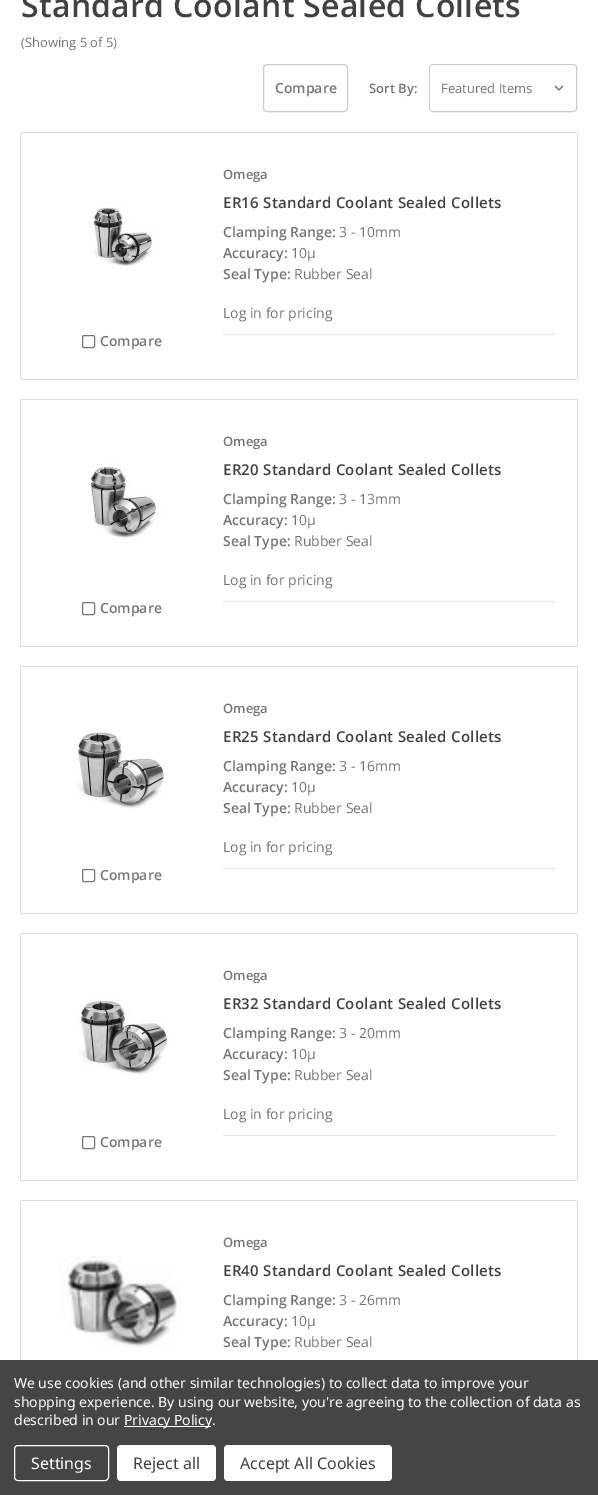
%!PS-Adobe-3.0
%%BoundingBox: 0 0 598 1495
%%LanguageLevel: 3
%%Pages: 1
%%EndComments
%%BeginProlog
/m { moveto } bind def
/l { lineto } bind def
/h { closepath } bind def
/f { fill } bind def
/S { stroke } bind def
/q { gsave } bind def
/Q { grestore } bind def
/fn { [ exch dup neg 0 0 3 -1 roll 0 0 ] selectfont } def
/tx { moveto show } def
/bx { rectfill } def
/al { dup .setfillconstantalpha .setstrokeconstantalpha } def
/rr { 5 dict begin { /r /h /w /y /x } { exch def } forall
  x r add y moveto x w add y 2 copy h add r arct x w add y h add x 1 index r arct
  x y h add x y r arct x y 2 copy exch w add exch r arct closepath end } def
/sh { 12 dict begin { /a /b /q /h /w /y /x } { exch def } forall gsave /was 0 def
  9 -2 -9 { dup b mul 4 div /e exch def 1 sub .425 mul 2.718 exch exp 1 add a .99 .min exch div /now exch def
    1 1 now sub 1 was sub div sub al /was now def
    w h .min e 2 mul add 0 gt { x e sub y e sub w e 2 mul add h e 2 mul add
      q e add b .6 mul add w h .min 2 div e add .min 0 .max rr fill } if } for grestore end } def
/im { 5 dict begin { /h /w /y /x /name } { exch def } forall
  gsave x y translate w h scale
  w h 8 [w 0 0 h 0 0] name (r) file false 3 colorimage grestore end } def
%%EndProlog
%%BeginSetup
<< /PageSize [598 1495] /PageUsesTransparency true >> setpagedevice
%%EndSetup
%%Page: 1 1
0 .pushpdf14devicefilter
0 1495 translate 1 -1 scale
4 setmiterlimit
1 setgray
0 0 598 1495 bx
/OpenSans-SemiBold 32 fn
0.255 setgray
21 17 m 0.25 0 (Standard Coolant Sealed Collets) ashow
/OpenSans-Regular 13 fn
0.459 setgray
(\(Showing 5 of 5\)) 21 47 tx
0.8 setgray
263.5 64.5 84 47 3.5 rr S
/OpenSans-SemiBold 14 fn
0.459 setgray
(Compare) 275 93 tx
/OpenSans-SemiBold 13 fn
(Sort By:) 369 93 tx
0.8 setgray
429.5 64.5 147 47 3.5 rr S
q
430 65 146 46 3 rr clip newpath
1 setgray
430 65 146 46 4 rr f
Q
(image0.raw) 554 85 10 6 im
/OpenSans-Regular 13 fn
0.459 setgray
(Featured Items) 441 93 tx
q
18 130 m 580 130 l 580 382 l 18 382 l h 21 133 m 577 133 l 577 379 l 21 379 l h eoclip newpath
0 setgray
21 133 556 246 0 0.5 0.5 sh
Q
/OpenSans-SemiBold 13 fn
(Omega) 223 179 tx
/OpenSans-SemiBold 15 fn
0.255 setgray
223 208 m 0.25 0 (ER16 Standard Coolant Sealed Collets) ashow
/OpenSans-SemiBold 14 fn
0.459 setgray
(Clamping Range:) 223 237 tx
/OpenSans-Regular 14 fn
(3 - 10mm) 339 237 tx
/OpenSans-SemiBold 14 fn
(Accuracy:) 223 258 tx
/OpenSans-Regular 14 fn
(10μ) 291 258 tx
/OpenSans-SemiBold 14 fn
(Seal Type:) 223 279 tx
/OpenSans-Regular 14 fn
(Rubber Seal) 294 279 tx
0.898 setgray
223 334 333 1 bx
0.459 setgray
(Log in for pricing) 223 318 tx
(image1.raw) 90 202 64 64 im
0.463 setgray
82.5 335.5 12 12 1.5 rr S
/OpenSans-SemiBold 14 fn
0.459 setgray
(Compare) 100 346 tx
q
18 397 m 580 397 l 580 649 l 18 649 l h 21 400 m 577 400 l 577 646 l 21 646 l h eoclip newpath
0 setgray
21 400 556 246 0 0.5 0.5 sh
Q
/OpenSans-SemiBold 13 fn
(Omega) 223 446 tx
/OpenSans-SemiBold 15 fn
0.255 setgray
223 475 m 0.25 0 (ER20 Standard Coolant Sealed Collets) ashow
/OpenSans-SemiBold 14 fn
0.459 setgray
(Clamping Range:) 223 504 tx
/OpenSans-Regular 14 fn
(3 - 13mm) 339 504 tx
/OpenSans-SemiBold 14 fn
(Accuracy:) 223 525 tx
/OpenSans-Regular 14 fn
(10μ) 291 525 tx
/OpenSans-SemiBold 14 fn
(Seal Type:) 223 546 tx
/OpenSans-Regular 14 fn
(Rubber Seal) 294 546 tx
0.898 setgray
223 601 333 1 bx
0.459 setgray
(Log in for pricing) 223 585 tx
(image2.raw) 90 462 72 76 im
0.463 setgray
82.5 602.5 12 12 1.5 rr S
/OpenSans-SemiBold 14 fn
0.459 setgray
(Compare) 100 613 tx
q
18 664 m 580 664 l 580 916 l 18 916 l h 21 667 m 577 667 l 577 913 l 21 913 l h eoclip newpath
0 setgray
21 667 556 246 0 0.5 0.5 sh
Q
/OpenSans-SemiBold 13 fn
(Omega) 223 713 tx
/OpenSans-SemiBold 15 fn
0.255 setgray
223 742 m 0.25 0 (ER25 Standard Coolant Sealed Collets) ashow
/OpenSans-SemiBold 14 fn
0.459 setgray
(Clamping Range:) 223 771 tx
/OpenSans-Regular 14 fn
(3 - 16mm) 339 771 tx
/OpenSans-SemiBold 14 fn
(Accuracy:) 223 792 tx
/OpenSans-Regular 14 fn
(10μ) 291 792 tx
/OpenSans-SemiBold 14 fn
(Seal Type:) 223 813 tx
/OpenSans-Regular 14 fn
(Rubber Seal) 294 813 tx
0.898 setgray
223 868 333 1 bx
0.459 setgray
(Log in for pricing) 223 852 tx
(image3.raw) 75 730 92 79 im
0.463 setgray
82.5 869.5 12 12 1.5 rr S
/OpenSans-SemiBold 14 fn
0.459 setgray
(Compare) 100 880 tx
q
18 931 m 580 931 l 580 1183 l 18 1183 l h 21 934 m 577 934 l 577 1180 l 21 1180 l h eoclip newpath
0 setgray
21 934 556 246 0 0.5 0.5 sh
Q
/OpenSans-SemiBold 13 fn
(Omega) 223 980 tx
/OpenSans-SemiBold 15 fn
0.255 setgray
223 1009 m 0.25 0 (ER32 Standard Coolant Sealed Collets) ashow
/OpenSans-SemiBold 14 fn
0.459 setgray
(Clamping Range:) 223 1038 tx
/OpenSans-Regular 14 fn
(3 - 20mm) 339 1038 tx
/OpenSans-SemiBold 14 fn
(Accuracy:) 223 1059 tx
/OpenSans-Regular 14 fn
(10μ) 291 1059 tx
/OpenSans-SemiBold 14 fn
(Seal Type:) 223 1080 tx
/OpenSans-Regular 14 fn
(Rubber Seal) 294 1080 tx
0.898 setgray
223 1135 333 1 bx
0.459 setgray
(Log in for pricing) 223 1119 tx
(image4.raw) 76 995 94 80 im
0.463 setgray
82.5 1136.5 12 12 1.5 rr S
/OpenSans-SemiBold 14 fn
0.459 setgray
(Compare) 100 1147 tx
q
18 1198 m 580 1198 l 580 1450 l 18 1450 l h 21 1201 m 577 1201 l 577 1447 l 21 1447 l h eoclip newpath
0 setgray
21 1201 556 246 0 0.5 0.5 sh
Q
(image5.raw) 60 1256 123 92 im
/OpenSans-SemiBold 13 fn
(Omega) 223 1247 tx
/OpenSans-SemiBold 15 fn
0.255 setgray
223 1276 m 0.25 0 (ER40 Standard Coolant Sealed Collets) ashow
/OpenSans-SemiBold 14 fn
0.459 setgray
(Clamping Range:) 223 1305 tx
/OpenSans-Regular 14 fn
(3 - 26mm) 339 1305 tx
/OpenSans-SemiBold 14 fn
(Accuracy:) 223 1326 tx
/OpenSans-Regular 14 fn
(10μ) 291 1326 tx
/OpenSans-SemiBold 14 fn
(Seal Type:) 223 1347 tx
/OpenSans-Regular 14 fn
(Rubber Seal) 294 1347 tx
0.271 setgray
0 1360 598 135 bx
/NotoSans-Regular 14 fn
1 setgray
14 1388 m -0.05 0 (We use cookies \(and other similar technologies\) to collect data to improve your) ashow
14 1407 m -0.05 0 (shopping experience. By using our website, you're agreeing to the collection of data as) ashow
14 1425 m -0.05 0 (described in our) ashow
124 1426 87 1 bx
124 1425 m -0.05 0 (Privacy Policy.) ashow
14.5 1445.5 94 35 3.5 rr S
/NotoSans-Regular 16 fn
(Settings) 31 1469 tx
117 1445 99 36 4 rr f
0.255 setgray
(Reject all) 133 1469 tx
1 setgray
224 1445 168 36 4 rr f
0.255 setgray
(Accept All Cookies) 240 1469 tx
.poppdf14devicefilter showpage
%%EOF
